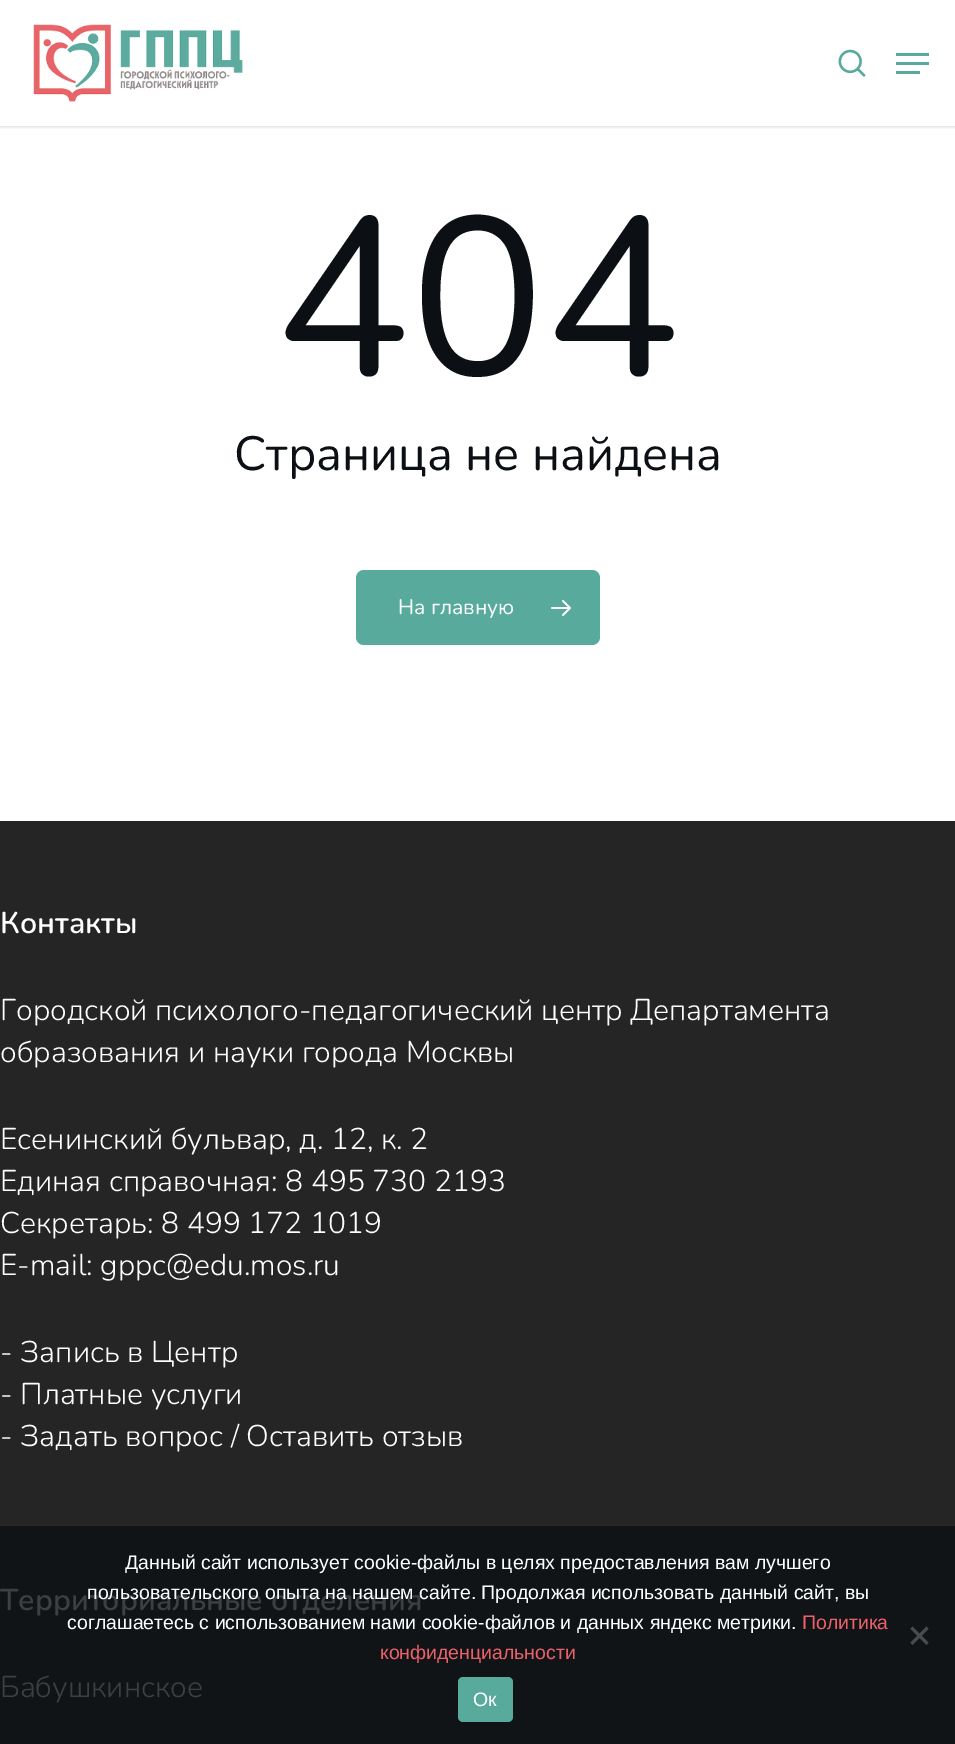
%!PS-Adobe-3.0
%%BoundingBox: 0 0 955 1744
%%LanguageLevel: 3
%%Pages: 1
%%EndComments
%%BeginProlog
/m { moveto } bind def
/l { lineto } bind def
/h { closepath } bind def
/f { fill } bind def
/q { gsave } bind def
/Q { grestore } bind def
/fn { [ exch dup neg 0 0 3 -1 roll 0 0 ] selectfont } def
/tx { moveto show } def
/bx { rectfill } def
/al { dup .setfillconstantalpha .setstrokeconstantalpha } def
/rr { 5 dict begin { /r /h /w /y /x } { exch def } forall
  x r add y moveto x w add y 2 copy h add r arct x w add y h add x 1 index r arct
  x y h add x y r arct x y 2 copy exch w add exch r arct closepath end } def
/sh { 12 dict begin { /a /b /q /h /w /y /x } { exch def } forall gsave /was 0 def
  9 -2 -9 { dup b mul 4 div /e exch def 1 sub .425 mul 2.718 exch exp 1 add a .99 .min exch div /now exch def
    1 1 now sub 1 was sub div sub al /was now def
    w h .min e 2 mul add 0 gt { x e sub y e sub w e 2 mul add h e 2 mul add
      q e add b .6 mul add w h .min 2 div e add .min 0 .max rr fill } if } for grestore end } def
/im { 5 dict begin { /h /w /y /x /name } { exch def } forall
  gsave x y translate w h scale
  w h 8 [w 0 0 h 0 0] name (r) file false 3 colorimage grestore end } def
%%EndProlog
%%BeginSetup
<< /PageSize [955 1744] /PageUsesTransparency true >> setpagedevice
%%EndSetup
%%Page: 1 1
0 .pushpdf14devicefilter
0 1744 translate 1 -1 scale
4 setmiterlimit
1 setgray
0 0 955 1744 bx
q
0 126 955 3 rectclip
0 setgray
0 0 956 126 0 2 0.22 sh
Q
(image0.raw) 33 24 210 78 im
(image1.raw) 838 49 28 28 im
0.341 0.667 0.612 setrgbcolor
896 53 33 3 bx
896 71 24 3 bx
896 62 33 3 bx
/Nunito-Regular 225 fn
0.047 0.063 0.078 setrgbcolor
(404) 275 375 tx
/Nunito-Regular 48 fn
(Страница не найдена) 234 470 tx
0.341 0.667 0.612 setrgbcolor
356 570 244 75 8 rr f
/Nunito-Regular 21 fn
1 setgray
(На главную) 398 614 tx
(image2.raw) 551 600 20 16 im
0.145 setgray
0 821 955 705 bx
0.067 0.078 0.09 setrgbcolor
0 1526 955 218 bx
/Nunito-SemiBold 30 fn
1 setgray
(Контакты) 0 933 tx
/Nunito-Light 30 fn
(Городской психолого-педагогический центр Департамента) 0 1020 tx
(образования и науки города Москвы) 0 1062 tx
(Есенинский бульвар, д. 12, к. 2) 0 1149 tx
(Единая справочная: 8 495 730 2193) 0 1191 tx
(Секретарь: 8 499 172 1019) 0 1233 tx
(E-mail: gppc@edu.mos.ru) 0 1275 tx
(- Запись в Центр) 0 1362 tx
(- Платные услуги) 0 1404 tx
(- Задать вопрос / Оставить отзыв) 0 1446 tx
/Nunito-SemiBold 30 fn
0.239 0.251 0.263 setrgbcolor
(Территориальные отделения) 0 1610 tx
/Nunito-Light 30 fn
(Бабушкинское) 0 1697 tx
/LiberationSans-Regular 19.5 fn
1 setgray
(Данный сайт использует cookie-файлы в целях предоставления вам лучшего) 125 1569 tx
(пользовательского опыта на нашем сайте. Продолжая использовать данный сайт, вы) 87 1599 tx
(соглашаетесь с использованием нами cookie-файлов и данных яндекс метрики.) 67 1629 tx
0.918 0.38 0.416 setrgbcolor
(Политика) 802 1629 tx
(конфиденциальности) 380 1659 tx
0.286 0.29 0.298 setrgbcolor
926.5 1626.5 m 928.5 1629 l 912.5 1645 l 910.5 1642.5 l h f
910.5 1629 m 912.5 1626.5 l 928.5 1642.5 l 926.5 1645 l h f
0.341 0.667 0.612 setrgbcolor
458 1677 55 45 5 rr f
1 setgray
(Ок) 473 1706 tx
.poppdf14devicefilter showpage
%%EOF
